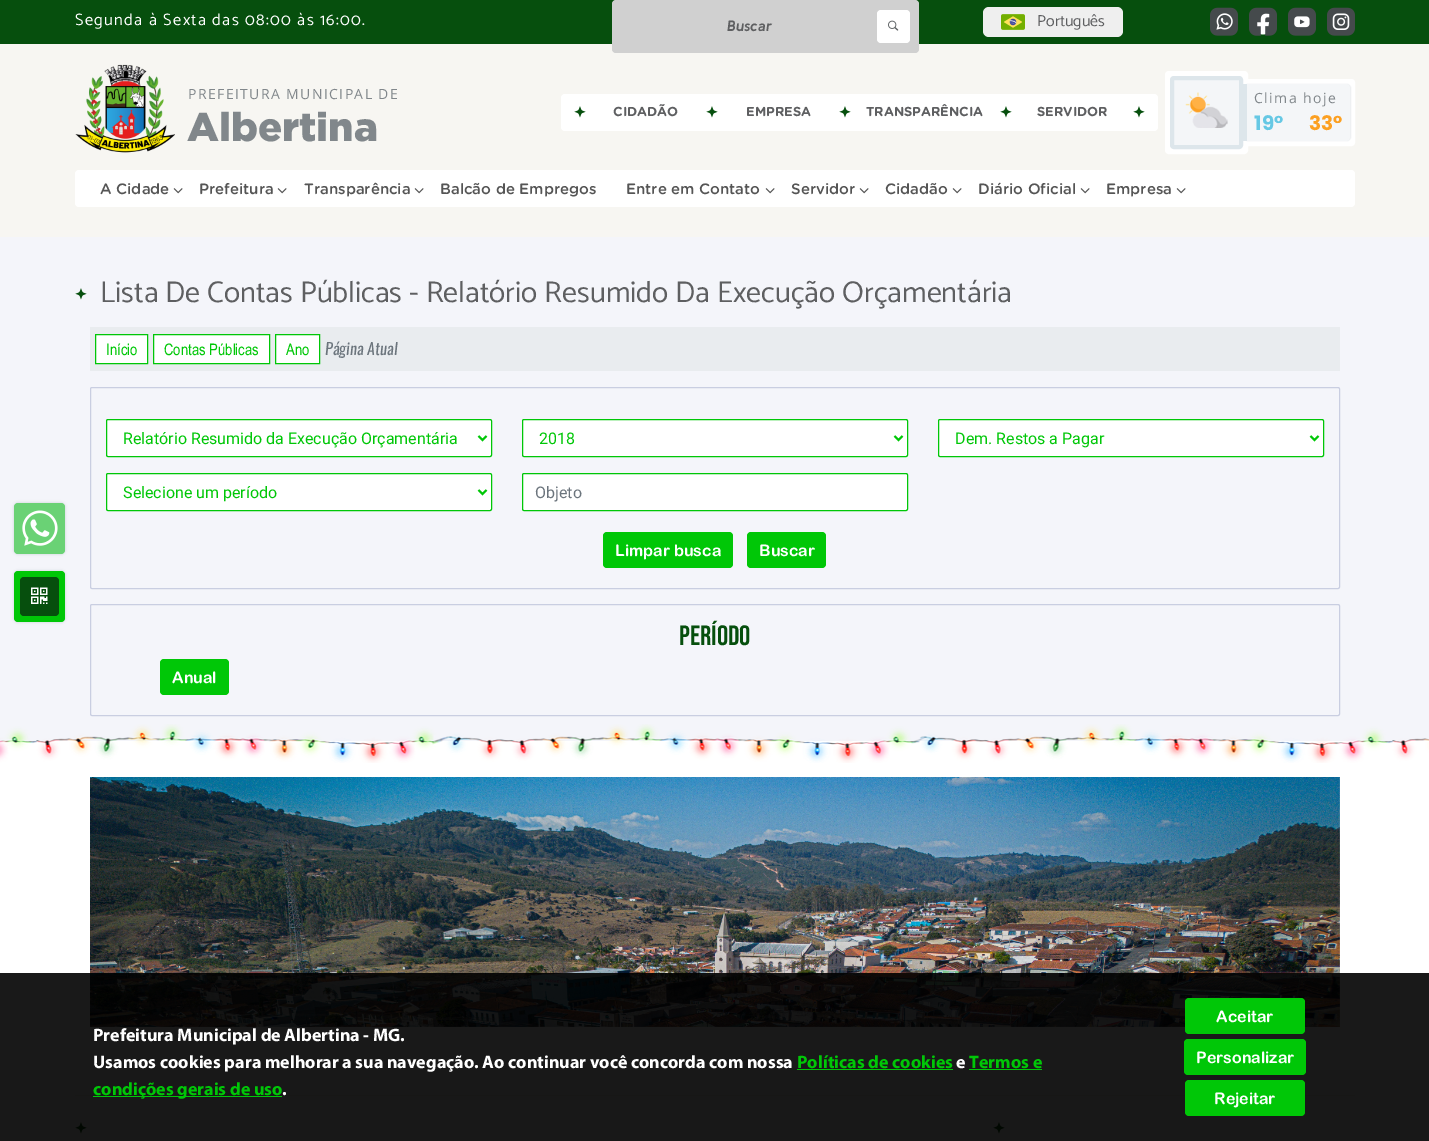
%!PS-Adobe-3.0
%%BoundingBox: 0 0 1429 1141
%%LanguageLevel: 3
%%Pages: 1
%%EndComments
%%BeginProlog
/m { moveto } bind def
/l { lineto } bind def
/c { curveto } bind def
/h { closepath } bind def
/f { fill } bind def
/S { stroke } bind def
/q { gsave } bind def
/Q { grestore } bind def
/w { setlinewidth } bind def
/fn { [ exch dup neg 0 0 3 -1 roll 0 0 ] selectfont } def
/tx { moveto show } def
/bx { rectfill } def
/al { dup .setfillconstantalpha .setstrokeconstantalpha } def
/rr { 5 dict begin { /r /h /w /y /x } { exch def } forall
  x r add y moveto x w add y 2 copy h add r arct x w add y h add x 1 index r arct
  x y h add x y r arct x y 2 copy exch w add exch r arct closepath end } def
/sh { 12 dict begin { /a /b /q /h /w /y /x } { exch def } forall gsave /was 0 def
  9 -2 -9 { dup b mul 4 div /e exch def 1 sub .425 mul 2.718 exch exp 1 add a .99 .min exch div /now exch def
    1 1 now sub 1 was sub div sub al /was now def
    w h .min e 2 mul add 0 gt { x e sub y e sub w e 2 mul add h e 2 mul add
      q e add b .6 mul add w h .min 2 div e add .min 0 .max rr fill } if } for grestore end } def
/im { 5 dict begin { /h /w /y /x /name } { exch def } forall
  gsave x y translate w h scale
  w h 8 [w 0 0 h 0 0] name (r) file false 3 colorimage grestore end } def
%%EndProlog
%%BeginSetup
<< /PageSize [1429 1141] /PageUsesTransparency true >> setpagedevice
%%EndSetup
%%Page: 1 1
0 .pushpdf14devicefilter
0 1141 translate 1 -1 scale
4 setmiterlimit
0.969 0.965 0.949 setrgbcolor
0 0 1429 1141 bx
0.957 0.961 0.98 setrgbcolor
0 237 1429 504 bx
0.796 0.816 0.839 setrgbcolor
14 503 51 51 4 1.5 1 sh
0.416 0.824 0.459 setrgbcolor
14 503 51 51 4 rr f
(image0.raw) 22 510 36 36 im
0.796 0.816 0.839 setrgbcolor
14 571 51 51 4 1.5 1 sh
0 0.78 0.027 setrgbcolor
14 571 51 51 4 rr f
0.024 0.31 0.051 setrgbcolor
20 577 39 39 4 rr f
(image1.raw) 31 587 17 17 im
0 0 1429 44 bx
/Catamaran-Regular 16.5 fn
1 setgray
75 25 m 1.3 0 (Segunda à Sexta das 08:00 às 16:00.) ashow
0.816 setgray
612 0 307 53 4 rr f
/KulimPark-BoldItalic 15 fn
0.369 0.373 0.38 setrgbcolor
(Buscar) 727 31 tx
1 setgray
877 10 33 33 4 rr f
(image2.raw) 888 20 11 11 im
0.937 setgray
983 7 140 30 6 rr f
(image3.raw) 1001 14 24 16 im
/Catamaran-Regular 16 fn
0.369 0.373 0.38 setrgbcolor
(Português) 1037 26 tx
q 1210 8 28 28 4 rr clip newpath 1224 22 translate 20 20 scale
<< /ShadingType 3 /ColorSpace /DeviceRGB /Coords [0 0 0 0 0 1] /Extend [true true] /Function << /FunctionType 3 /Domain [0 1] /Functions [<< /FunctionType 2 /Domain [0 1] /C0 [1 1 1] /C1 [1 1 1] /N 1 >> << /FunctionType 2 /Domain [0 1] /C0 [1 1 1] /C1 [0.024 0.31 0.051] /N 1 >> << /FunctionType 2 /Domain [0 1] /C0 [0.024 0.31 0.051] /C1 [0.024 0.31 0.051] /N 1 >>] /Bounds [0.6 0.65] /Encode [0 1 0 1 0 1] >> >> shfill Q
(image4.raw) 1210 7 28 29 im
q 1249 8 28 28 4 rr clip newpath 1263 22 translate 20 20 scale
<< /ShadingType 3 /ColorSpace /DeviceRGB /Coords [0 0 0 0 0 1] /Extend [true true] /Function << /FunctionType 3 /Domain [0 1] /Functions [<< /FunctionType 2 /Domain [0 1] /C0 [1 1 1] /C1 [1 1 1] /N 1 >> << /FunctionType 2 /Domain [0 1] /C0 [1 1 1] /C1 [0.024 0.31 0.051] /N 1 >> << /FunctionType 2 /Domain [0 1] /C0 [0.024 0.31 0.051] /C1 [0.024 0.31 0.051] /N 1 >>] /Bounds [0.6 0.65] /Encode [0 1 0 1 0 1] >> >> shfill Q
(image5.raw) 1249 7 28 29 im
q 1288 8 28 28 4 rr clip newpath 1302 22 translate 20 20 scale
<< /ShadingType 3 /ColorSpace /DeviceRGB /Coords [0 0 0 0 0 1] /Extend [true true] /Function << /FunctionType 3 /Domain [0 1] /Functions [<< /FunctionType 2 /Domain [0 1] /C0 [1 1 1] /C1 [1 1 1] /N 1 >> << /FunctionType 2 /Domain [0 1] /C0 [1 1 1] /C1 [0.024 0.31 0.051] /N 1 >> << /FunctionType 2 /Domain [0 1] /C0 [0.024 0.31 0.051] /C1 [0.024 0.31 0.051] /N 1 >>] /Bounds [0.6 0.65] /Encode [0 1 0 1 0 1] >> >> shfill Q
(image6.raw) 1288 7 28 29 im
q 1327 8 28 28 4 rr clip newpath 1341 22 translate 20 20 scale
<< /ShadingType 3 /ColorSpace /DeviceRGB /Coords [0 0 0 0 0 1] /Extend [true true] /Function << /FunctionType 3 /Domain [0 1] /Functions [<< /FunctionType 2 /Domain [0 1] /C0 [1 1 1] /C1 [1 1 1] /N 1 >> << /FunctionType 2 /Domain [0 1] /C0 [1 1 1] /C1 [0.024 0.31 0.051] /N 1 >> << /FunctionType 2 /Domain [0 1] /C0 [0.024 0.31 0.051] /C1 [0.024 0.31 0.051] /N 1 >>] /Bounds [0.6 0.65] /Encode [0 1 0 1 0 1] >> >> shfill Q
(image7.raw) 1327 7 28 29 im
(image8.raw) 75 64 100 89 im
/OpenSans-Regular 14 fn
0.506 0.529 0.545 setrgbcolor
188 99 m 1.4 0 (PREFEITURA MUNICIPAL DE) ashow
/Gotham-Black 40 fn
(Albertina) 187 141 tx
1 setgray
561 94 597 37 4 rr f
(image9.raw) 574 106 12 12 im
/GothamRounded-Bold 13 fn
0.369 0.373 0.38 setrgbcolor
(CIDADÃO) 613 116 tx
(image9.raw) 706 106 12 12 im
(EMPRESA) 746 116 tx
(image9.raw) 839 106 12 12 im
(TRANSPARÊNCIA) 866 116 tx
(image9.raw) 1000 106 12 12 im
(SERVIDOR) 1037 116 tx
(image9.raw) 1133 106 12 12 im
1 setgray
1167.5 73.5 78 78 1.5 rr q f Q
5 w
S
0.957 0.965 0.973 setrgbcolor
1172 78 69 69 2 rr q f Q
0.867 0.902 0.922 setrgbcolor
4 w
S
(image10.raw) 1185 92 43 36 im
1 setgray
1250.5 81.5 m 1351 81.5 l 1352 81.5 1352.5 82 1352.5 83 c 1352.5 142 l 1352.5 143 1352 143.5 1351 143.5 c 1250.5 143.5 l h q f Q
5 w
S
0.925 0.933 0.941 setrgbcolor
1244 84 107 57 4 0.5 1 sh
0.957 0.965 0.973 setrgbcolor
1243 84 m 1346 84 l 1348 84 1350 86 1350 88 c 1350 137 l 1350 139 1348 141 1346 141 c 1243 141 l h f
0.867 0.902 0.922 setrgbcolor
1243 84 4 57 bx
/OpenSans-Regular 14 fn
0.506 0.529 0.545 setrgbcolor
1254 103 m 1.4 0 (Clima hoje) ashow
/Poppins-Bold 20 fn
0.4 0.784 0.894 setrgbcolor
(19°) 1254 130 tx
0.988 0.627 0.133 setrgbcolor
(33°) 1309 130 tx
1 setgray
75 170 1280 37 4 rr f
/GothamRounded-Medium 15 fn
0.333 setgray
(A Cidade) 100 194 tx
(image11.raw) 173 188 10 6 im
(Prefeitura) 199 194 tx
(image11.raw) 277 188 10 6 im
(Transparência) 304 194 tx
(image11.raw) 414 188 10 6 im
(Balcão de Empregos) 440 194 tx
(Entre em Contato) 626 194 tx
(image11.raw) 765 188 10 6 im
(Servidor) 791 194 tx
(image11.raw) 859 188 10 6 im
(Cidadão) 885 194 tx
(image11.raw) 952 188 10 6 im
(Diário Oficial) 978 194 tx
(image11.raw) 1080 188 10 6 im
(Empresa) 1106 194 tx
(image11.raw) 1176 188 10 6 im
(image12.raw) 75 288 12 12 im
/Catamaran-Regular 30 fn
0.369 0.373 0.38 setrgbcolor
(Lista De Contas Públicas - Relatório Resumido Da Execução Orçamentária) 100 302 tx
0.914 0.925 0.937 setrgbcolor
90 327 1250 44 bx
1 setgray
95.5 334.5 m 147.5 334.5 l 147.5 363.5 l 95.5 363.5 l h q f Q
0 0.78 0.027 setrgbcolor
1 w
S
/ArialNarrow-Regular 16 fn
(Início) 106 355 tx
1 setgray
153.5 334.5 m 269.5 334.5 l 269.5 363.5 l 153.5 363.5 l h q f Q
0 0.78 0.027 setrgbcolor
S
(Contas Públicas) 164 355 tx
1 setgray
275.5 334.5 m 319.5 334.5 l 319.5 363.5 l 275.5 363.5 l h q f Q
0 0.78 0.027 setrgbcolor
S
(Ano) 286 355 tx
/Oswald-Italic 16 fn
0.424 0.459 0.49 setrgbcolor
(Página Atual) 325 355 tx
0.788 0.808 0.882 setrgbcolor
90.5 387.5 1249 201 1.5 rr S
1 setgray
106.5 419.5 385 37 1.5 rr q f Q
0 0.78 0.027 setrgbcolor
S
2 w
478.5 436 m 482.5 440 l 486.5 436 l S
/Roboto-Regular 16 fn
(Relatório Resumido da Execução Orçamentária) 123 444 tx
1 setgray
522.5 419.5 385 37 1.5 rr q f Q
0 0.78 0.027 setrgbcolor
1 w
S
2 w
894.5 436 m 898.5 440 l 902.5 436 l S
(2018) 539 444 tx
1 setgray
938.5 419.5 385 37 1.5 rr q f Q
0 0.78 0.027 setrgbcolor
1 w
S
2 w
1310.5 436 m 1314.5 440 l 1318.5 436 l S
(Dem. Restos a Pagar) 955 444 tx
1 setgray
106.5 473.5 385 37 1.5 rr q f Q
0 0.78 0.027 setrgbcolor
1 w
S
2 w
478.5 490 m 482.5 494 l 486.5 490 l S
(Selecione um período) 123 498 tx
1 setgray
522.5 473.5 385 37 1.5 rr q f Q
0 0.78 0.027 setrgbcolor
1 w
S
0.424 0.459 0.49 setrgbcolor
(Objeto) 535 498 tx
0 0.78 0.027 setrgbcolor
603 532 130 36 4 rr f
/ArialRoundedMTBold-Bold 16 fn
1 setgray
(Limpar busca) 615 556 tx
0 0.78 0.027 setrgbcolor
747 532 79 36 4 rr f
1 setgray
(Buscar) 759 556 tx
0.788 0.808 0.882 setrgbcolor
90.5 604.5 1249 111 1.5 rr S
/BebasNeue-Regular 28 fn
0.024 0.31 0.051 setrgbcolor
(Período) 679 645 tx
0 0.78 0.027 setrgbcolor
160 659 69 36 4 rr f
/ArialRoundedMTBold-Bold 16 fn
1 setgray
(Anual) 172 683 tx
0 741 1429 329 bx
(image13.raw) 0 724 1429 39 im
(image14.raw) 90 777 1250 250 im
0.91 0.906 0.89 setrgbcolor
75 1095 1280 1 bx
(image15.raw) 75 1122 12 12 im
(image15.raw) 993 1122 12 12 im
0.9 al
0 setgray
0 973 1429 168 bx
/Myriad-Bold 18 fn
1 al
1 setgray
(Prefeitura Municipal de Albertina - MG.) 93 1041 tx
(Usamos cookies para melhorar a sua navegação. Ao continuar você concorda com nossa) 93 1068 tx
0 0.78 0.027 setrgbcolor
(Políticas de cookies) 797 1068 tx
797 1069 156 1 bx
1 setgray
(e) 956 1068 tx
0 0.78 0.027 setrgbcolor
(Termos e) 969 1068 tx
969 1069 73 1 bx
93 1096 189 1 bx
(condições gerais de uso) 93 1095 tx
1 setgray
(.) 282 1095 tx
0 0.78 0.027 setrgbcolor
1185 998 120 36 4 rr f
/ArialRoundedMTBold-Bold 16 fn
1 setgray
(Aceitar) 1216 1022 tx
0 0.78 0.027 setrgbcolor
1184 1039 122 36 4 rr f
1 setgray
(Personalizar) 1196 1063 tx
0 0.78 0.027 setrgbcolor
1185 1080 120 36 4 rr f
1 setgray
(Rejeitar) 1214 1104 tx
.poppdf14devicefilter showpage
%%EOF
